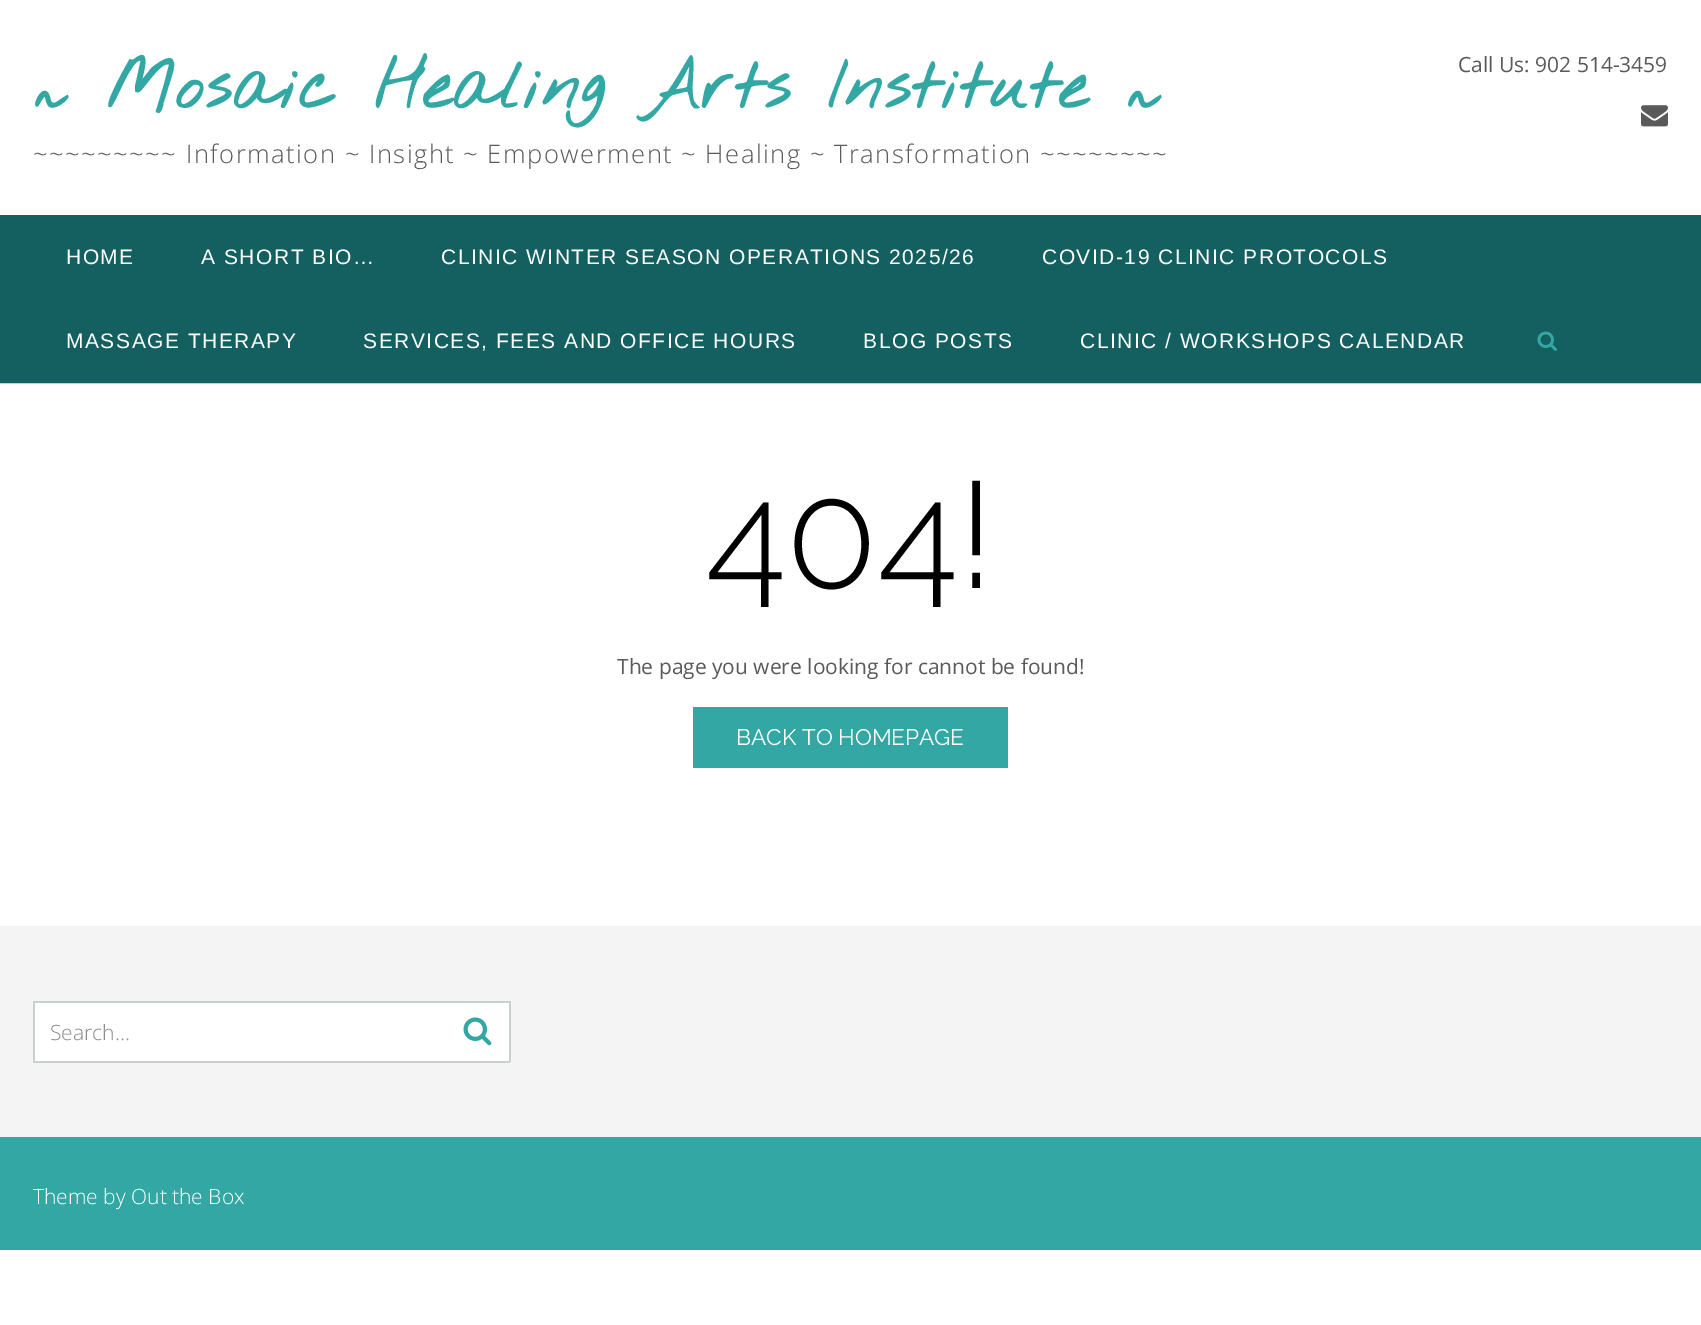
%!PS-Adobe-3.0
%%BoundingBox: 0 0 1701 1325
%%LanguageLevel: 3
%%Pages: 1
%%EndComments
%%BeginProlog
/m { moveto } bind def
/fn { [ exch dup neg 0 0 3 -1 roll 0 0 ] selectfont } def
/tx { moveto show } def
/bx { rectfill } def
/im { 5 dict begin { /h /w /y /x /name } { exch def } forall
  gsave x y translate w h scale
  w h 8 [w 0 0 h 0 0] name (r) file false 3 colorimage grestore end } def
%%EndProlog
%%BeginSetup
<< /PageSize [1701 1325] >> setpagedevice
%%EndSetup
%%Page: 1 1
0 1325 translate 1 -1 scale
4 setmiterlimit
1 setgray
0 0 1701 1325 bx
/NothingYouCouldDo-Bold 67.5 fn
0.2 0.655 0.643 setrgbcolor
33 108 m 1.5 0 (~ Mosaic Healing Arts Institute ~) ashow
/OpenSans-Light 25.5 fn
0.353 setgray
33 163 m 1.5 0 (~~~~~~~~~ Information ~ Insight ~ Empowerment ~ Healing ~ Transformation ~~~~~~~~) ashow
/OpenSans-Regular 21 fn
(Call Us: 902 514-3459) 1458 72 tx
(image0.raw) 1641 105 27 22 im
0.078 0.376 0.376 setrgbcolor
0 215 1701 168 bx
0.792 0.812 0.816 setrgbcolor
0 383 1701 1 bx
/LiberationSans-Regular 21 fn
1 setgray
66 264 m 1.5 0 (HOME) ashow
201 264 m 1.5 0 (A SHORT BIO…) ashow
441 264 m 1.5 0 (CLINIC WINTER SEASON OPERATIONS 2025/26) ashow
1042 264 m 1.5 0 (COVID-19 CLINIC PROTOCOLS) ashow
66 348 m 1.5 0 (MASSAGE THERAPY) ashow
363 348 m 1.5 0 (SERVICES, FEES AND OFFICE HOURS) ashow
863 348 m 1.5 0 (BLOG POSTS) ashow
1080 348 m 1.5 0 (CLINIC / WORKSHOPS CALENDAR) ashow
(image1.raw) 1537 331 20 20 im
/Raleway-Light 150 fn
0 setgray
(404!) 706 588 tx
/OpenSans-Regular 21 fn
0.353 setgray
(The page you were looking for cannot be found!) 617 674 tx
0.2 0.655 0.643 setrgbcolor
693 707 315 61 bx
/Raleway-Regular 22.5 fn
1 setgray
(BACK TO HOMEPAGE) 736 745 tx
0.957 setgray
0 926 1701 211 bx
1 setgray
35 1003 474 58 bx
0.792 0.812 0.816 setrgbcolor
33 1001 477 2 bx
33 1061 413 2 bx
33 1001 2 61 bx
/OpenSans-Light 21 fn
0.541 0.541 0.549 setrgbcolor
(Search...) 50 1040 tx
0.792 0.812 0.816 setrgbcolor
509 1001 2 61 bx
446 1061 64 2 bx
(image2.raw) 463 1017 29 29 im
0.2 0.655 0.643 setrgbcolor
0 1137 1701 113 bx
1 setgray
(Theme by Out the Box) 33 1204 tx
showpage
%%EOF
